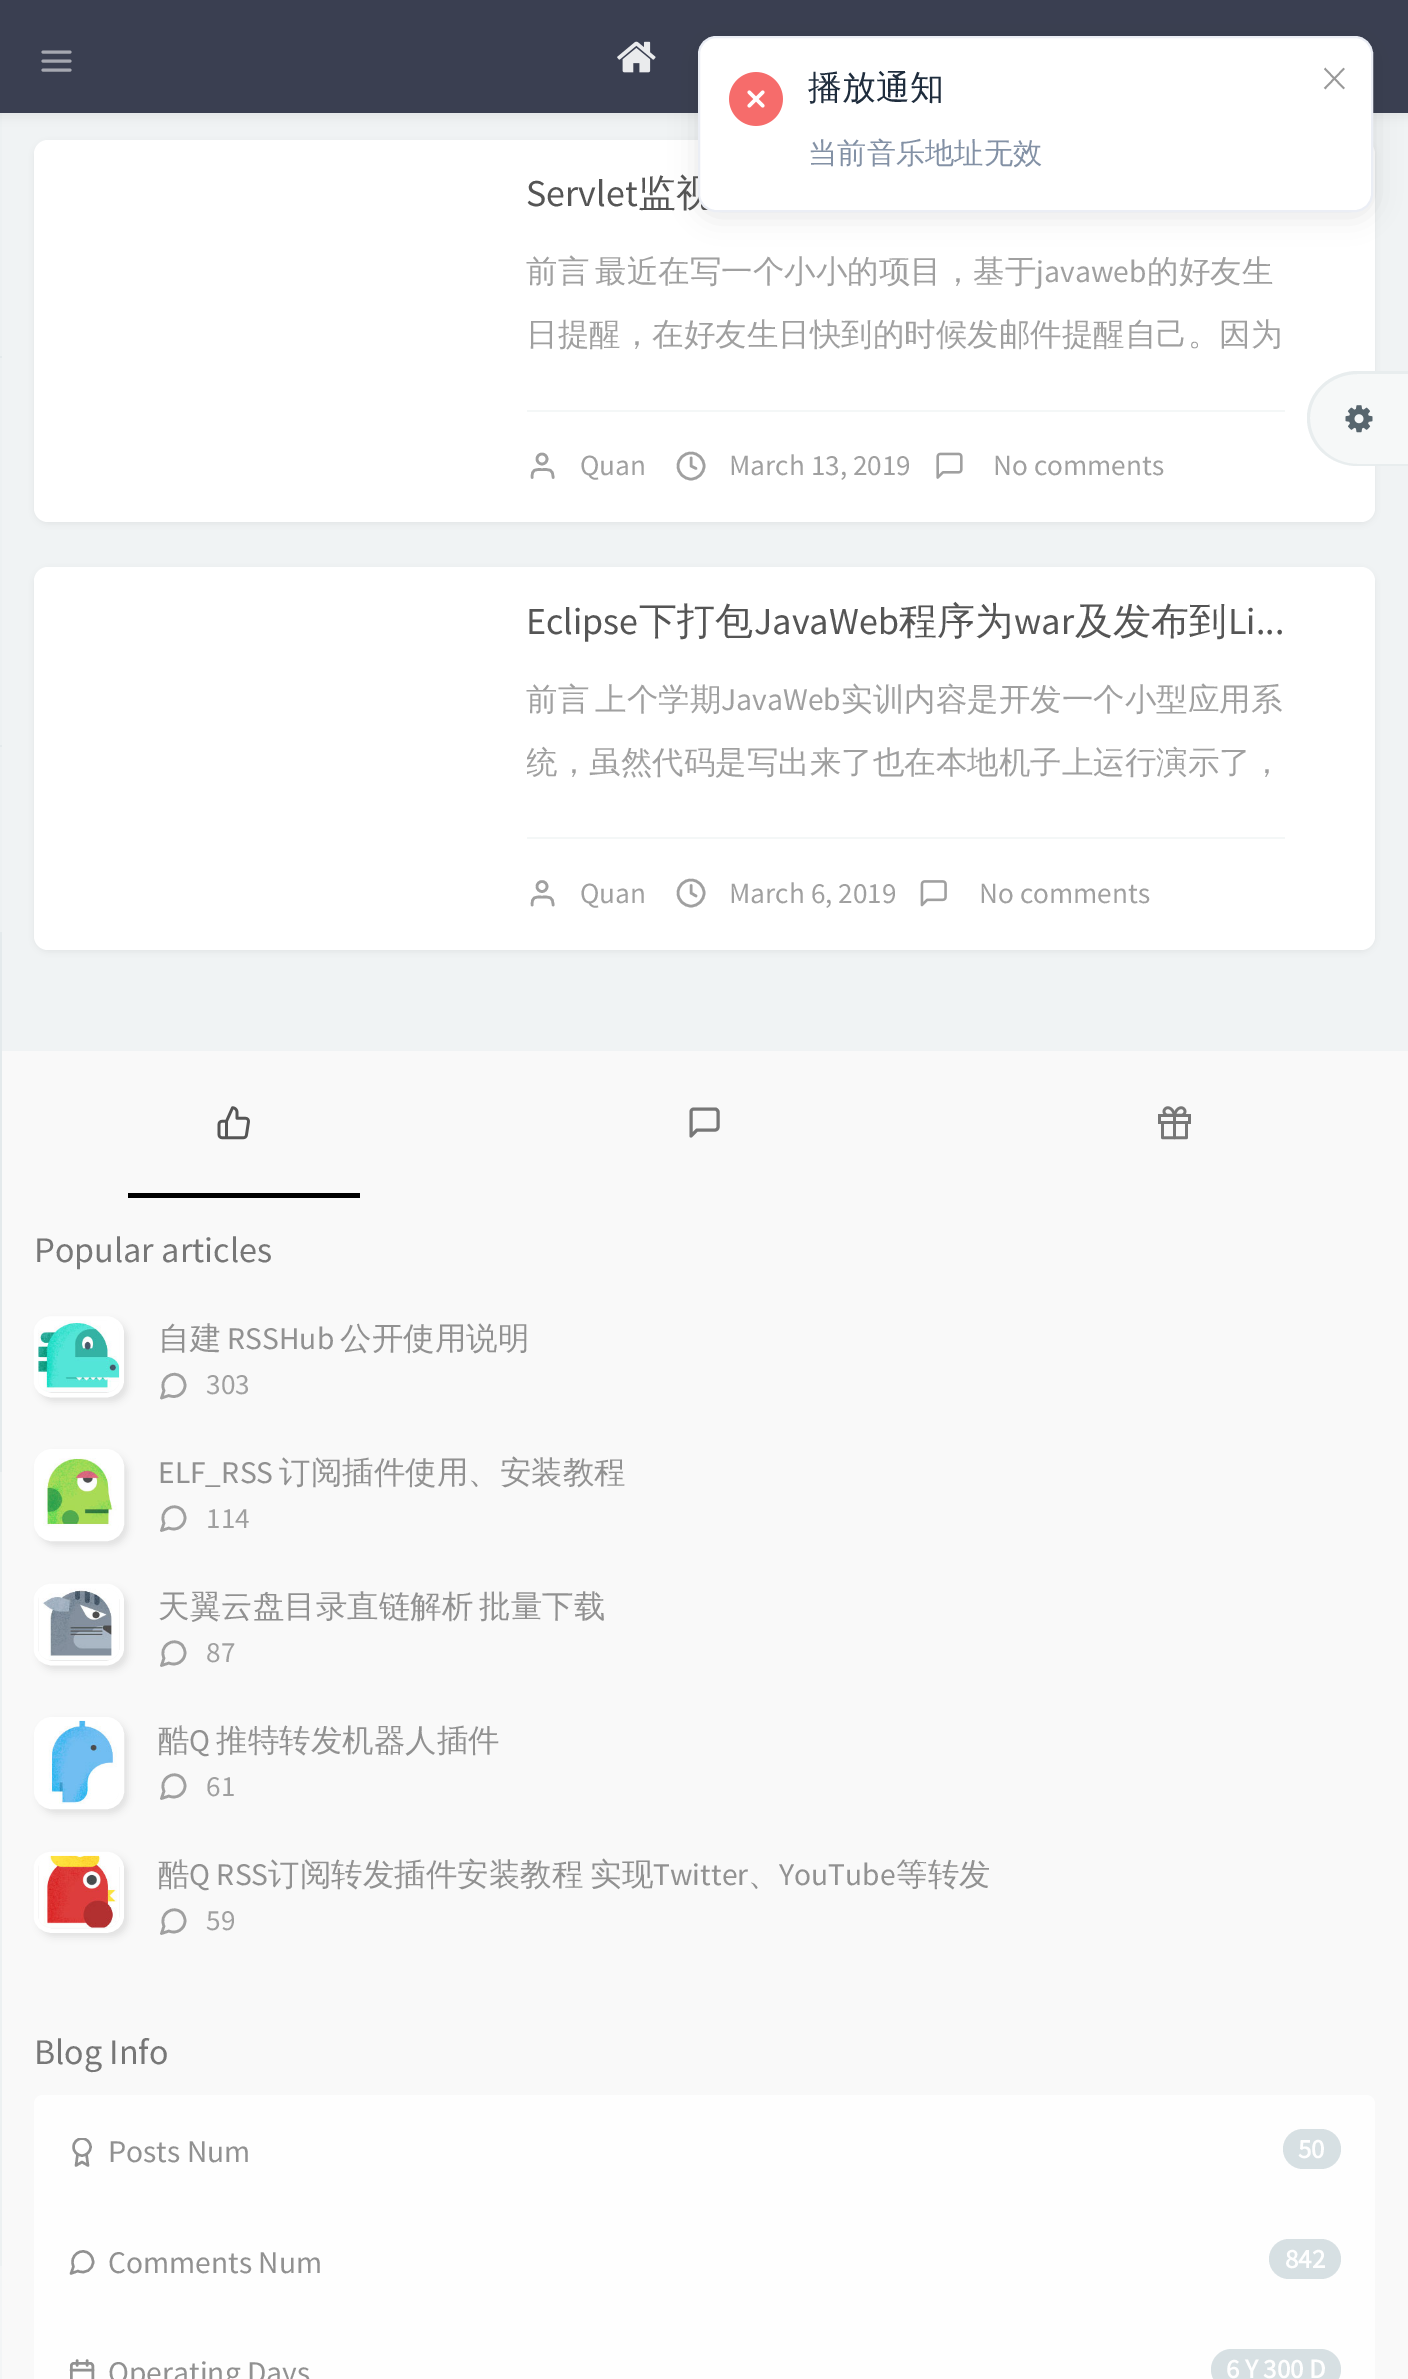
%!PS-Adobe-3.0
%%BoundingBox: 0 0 1408 2379
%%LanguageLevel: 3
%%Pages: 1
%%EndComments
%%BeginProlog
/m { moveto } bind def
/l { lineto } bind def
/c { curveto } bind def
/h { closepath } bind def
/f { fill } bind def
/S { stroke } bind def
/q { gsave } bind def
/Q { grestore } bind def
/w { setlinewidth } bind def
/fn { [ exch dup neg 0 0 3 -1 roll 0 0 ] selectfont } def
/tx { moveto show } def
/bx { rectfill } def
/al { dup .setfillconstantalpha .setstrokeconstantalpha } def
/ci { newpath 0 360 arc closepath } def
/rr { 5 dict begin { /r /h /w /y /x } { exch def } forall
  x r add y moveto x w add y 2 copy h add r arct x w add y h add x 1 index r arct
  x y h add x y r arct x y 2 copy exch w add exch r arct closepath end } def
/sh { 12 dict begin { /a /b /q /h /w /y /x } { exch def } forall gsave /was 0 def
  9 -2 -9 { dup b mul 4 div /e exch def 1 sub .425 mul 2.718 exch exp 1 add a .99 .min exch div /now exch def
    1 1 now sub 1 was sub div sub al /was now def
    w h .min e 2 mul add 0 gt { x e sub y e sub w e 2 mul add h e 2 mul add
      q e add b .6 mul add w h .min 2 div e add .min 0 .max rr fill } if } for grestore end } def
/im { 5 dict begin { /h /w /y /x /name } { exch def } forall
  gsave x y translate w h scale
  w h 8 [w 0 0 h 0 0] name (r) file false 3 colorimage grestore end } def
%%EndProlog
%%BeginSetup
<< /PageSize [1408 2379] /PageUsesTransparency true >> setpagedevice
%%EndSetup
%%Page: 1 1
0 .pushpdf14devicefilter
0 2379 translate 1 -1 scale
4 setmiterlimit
0.941 0.953 0.957 setrgbcolor
0 0 1408 2379 bx
0.929 0.945 0.949 setrgbcolor
0 113 2 2153 bx
0 setgray
-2 0 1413 117 0 5.5 0.05 sh
0.227 0.247 0.318 setrgbcolor
0 0 1408 113 bx
0 setgray
34 142 1341 382 14 3.5 0.05 sh
1 setgray
34 140 1341 382 14 rr f
0 setgray
698 41 675 175 18 13.5 0.1 sh
/WenQuanYiZenHei-Medium 38 fn
0.333 setgray
(监视) 638 206 tx
1 setgray
699 37 673 174 17 rr q f Q
0.922 0.933 0.961 setrgbcolor
2 w
S
(image0.raw) 729 72 54 54 im
/WenQuanYiZenHei-Medium 34 fn
0.122 0.176 0.239 setrgbcolor
(播放通知) 808 99 tx
/SourceSansPro-Light 56 fn
0.6 setgray
(×) 1321 97 tx
/WenQuanYiZenHei-Medium 29.25 fn
0.514 0.569 0.647 setrgbcolor
(当前音乐地址无效) 808 163 tx
0.651 0.659 0.694 setrgbcolor
3 w
1 setlinecap
1 setlinejoin
43 61 m 70 61 l 43 52 m 70 52 l 43 70 m 70 70 l S
(image1.raw) 617 41 39 32 im
0.894 0.918 0.925 setrgbcolor
0 356 2 2 bx
0 745 2 2 bx
0 932 2 540 bx
0.953 0.961 0.965 setrgbcolor
0 2266 2 113 bx
/SourceSansPro-Regular 38 fn
0.333 setgray
(Servlet) 526 206 tx
/WenQuanYiZenHei-Medium 31.5 fn
0.627 setgray
526 282 m -3 0 32 (前言 最近在写一个小小的项目，基于) widthshow
/SourceSansPro-Regular 31.5 fn
(javaweb) 1036 282 tx
/WenQuanYiZenHei-Medium 31.5 fn
(的好友生) 1147 282 tx
(日提醒，在好友生日快到的时候发邮件提醒自己。因为) 526 345 tx
0.957 0.969 0.969 setrgbcolor
527 410 758 2 bx
0.627 setgray
2.6 w
0 setlinecap
0 setlinejoin
542 459 5 ci S
/SourceSansPro-Regular 29.25 fn
(Quan) 580 475 tx
1 setlinecap
1 setlinejoin
553 477.5 m 553 469 549.5 469.5 542 469.5 c 535 469.5 532 469 532 477.5 c S
0 setlinecap
0 setlinejoin
691 466 13 ci S
(March 13, 2019) 729 475 tx
1 setlinecap
1 setlinejoin
691 458 m 691 466 l 696 468.5 l S
(image2.raw) 936 452 27 27 im
(No comments) 993 475 tx
0 setgray
34 569 1341 383 14 3.5 0.05 sh
1 setgray
34 567 1341 383 14 rr f
/SourceSansPro-Regular 38 fn
0.333 setgray
(Eclipse) 526 634 tx
/WenQuanYiZenHei-Medium 38 fn
(下打包) 639 634 tx
/SourceSansPro-Regular 38 fn
(JavaWeb) 754 634 tx
/WenQuanYiZenHei-Medium 38 fn
(程序为) 899 634 tx
/SourceSansPro-Regular 38 fn
(war) 1014 634 tx
/WenQuanYiZenHei-Medium 38 fn
(及发布到) 1075 634 tx
/SourceSansPro-Regular 38 fn
(Li...) 1228 634 tx
/WenQuanYiZenHei-Medium 31.5 fn
0.627 setgray
526 710 m -3 0 32 (前言 上个学期) widthshow
/SourceSansPro-Regular 31.5 fn
(JavaWeb) 721 710 tx
/WenQuanYiZenHei-Medium 31.5 fn
(实训内容是开发一个小型应用系) 841 710 tx
q
527 666 758 135 rectclip
(统，虽然代码是写出来了也在本地机子上运行演示了，) 526 773 tx
Q
0.957 0.969 0.969 setrgbcolor
527 837 758 2 bx
0.627 setgray
0 setlinecap
0 setlinejoin
542 886.5 5 ci S
/SourceSansPro-Regular 29.25 fn
(Quan) 580 903 tx
1 setlinecap
1 setlinejoin
553 905 m 553 896.5 549.5 897 542 897 c 535 897 532 896.5 532 905 c S
0 setlinecap
0 setlinejoin
691 893 13 ci S
(March 6, 2019) 729 903 tx
1 setlinecap
1 setlinejoin
691 885.5 m 691 893 l 696 896 l S
(image3.raw) 920 880 27 27 im
(No comments) 979 903 tx
0.976 setgray
2 1051 1406 1328 bx
(image4.raw) 217 1106 33 34 im
0.467 setgray
3 w
718 1127 m 718 1129 716.5 1130 715 1130 c 697 1130 l 691 1136 l 691 1112 l 691 1110.5 692 1109 694 1109 c 715 1109 l 716.5 1109 718 1110.5 718 1112 c h S
(image5.raw) 1158 1106 33 34 im
0 setgray
128 1193 232 5 bx
/SourceSansPro-Regular 36 fn
0.467 setgray
(Popular articles) 34 1262 tx
0.882 setgray
38 1321 90 81 16 3.5 1 sh
1 setgray
4.5 w
0 setlinecap
0 setlinejoin
52 1318.5 m 106 1318.5 l 114.5 1318.5 121.5 1324.5 121.5 1332.5 c 121.5 1381 l 121.5 1389 114.5 1395 106 1395 c 52 1395 l 43 1395 36 1389 36 1381 c 36 1332.5 l 36 1324.5 43 1318.5 52 1318.5 c h S
(image6.raw) 38 1320 82 72 im
/WenQuanYiZenHei-Medium 31.5 fn
0.569 setgray
(自建) 158 1349 tx
/SourceSansPro-Regular 31.5 fn
(RSSHub) 227 1349 tx
/WenQuanYiZenHei-Medium 31.5 fn
(公开使用说明) 340 1349 tx
/SourceSansPro-Regular 29.25 fn
0.627 setgray
(303) 206 1394 tx
2.6 w
1 setlinecap
1 setlinejoin
185 1385.5 m 185 1393.5 176 1399 169 1395.5 c 161.5 1398 l 164 1390.5 l 158.5 1379.5 173 1368.5 182 1377.5 c 184 1379.5 185 1382.5 185 1385.5 c h S
0.882 setgray
38 1454 90 92 18 3.5 1 sh
1 setgray
5 w
0 setlinecap
0 setlinejoin
36.5 1451.5 85 87 15.5 rr S
(image7.raw) 39 1454 80 82 im
/SourceSansPro-Regular 31.5 fn
0.569 setgray
(ELF_RSS) 158 1483 tx
/WenQuanYiZenHei-Medium 31.5 fn
(订阅插件使用、安装教程) 279 1483 tx
/SourceSansPro-Regular 29.25 fn
0.627 setgray
(114) 206 1528 tx
2.6 w
1 setlinecap
1 setlinejoin
185 1518 m 185 1526 176 1531.5 169 1528 c 161.5 1530.5 l 164 1523 l 158.5 1512 173 1501 182 1510 c 184 1512.5 185 1515 185 1518 c h S
0.882 setgray
38 1589 90 81 16 3.5 1 sh
1 setgray
4.5 w
0 setlinecap
0 setlinejoin
52 1586 m 106 1586 l 114.5 1586 121.5 1592.5 121.5 1600 c 121.5 1649 l 121.5 1656.5 114.5 1663 106 1663 c 52 1663 l 43 1663 36 1656.5 36 1649 c 36 1600 l 36 1592.5 43 1586 52 1586 c h S
(image8.raw) 39 1588 80 72 im
/WenQuanYiZenHei-Medium 31.5 fn
0.569 setgray
158 1617 m -3 0 32 (天翼云盘目录直链解析 批量下载) widthshow
/SourceSansPro-Regular 29.25 fn
0.627 setgray
(87) 206 1662 tx
2.6 w
1 setlinecap
1 setlinejoin
185 1653 m 185 1661 176 1666.5 169 1663 c 161.5 1665.5 l 164 1658 l 158.5 1647 173 1636 182 1645 c 184 1647.5 185 1650 185 1653 c h S
0.882 setgray
38 1721 90 93 18 3.5 1 sh
1 setgray
5 w
0 setlinecap
0 setlinejoin
36.5 1719.5 85 87 15.5 rr S
(image9.raw) 39 1720 80 84 im
/WenQuanYiZenHei-Medium 31.5 fn
0.569 setgray
(酷) 158 1751 tx
/SourceSansPro-Regular 31.5 fn
(Q) 189 1751 tx
/WenQuanYiZenHei-Medium 31.5 fn
(推特转发机器人插件) 216 1751 tx
/SourceSansPro-Regular 29.25 fn
0.627 setgray
(61) 206 1796 tx
2.6 w
1 setlinecap
1 setlinejoin
185 1786 m 185 1794 176 1799.5 169 1796 c 161.5 1798.5 l 164 1791 l 158.5 1780 173 1769 182 1778 c 184 1780 185 1783 185 1786 c h S
0.882 setgray
38 1856 90 81 16 3.5 1 sh
1 setgray
4.5 w
0 setlinecap
0 setlinejoin
52 1854 m 106 1854 l 114.5 1854 121.5 1860 121.5 1868 c 121.5 1916.5 l 121.5 1924.5 114.5 1930.5 106 1930.5 c 52 1930.5 l 43 1930.5 36 1924.5 36 1916.5 c 36 1868 l 36 1860 43 1854 52 1854 c h S
(image10.raw) 39 1855 80 73 im
/WenQuanYiZenHei-Medium 31.5 fn
0.569 setgray
(酷) 158 1885 tx
/SourceSansPro-Regular 31.5 fn
(Q RSS) 189 1885 tx
/WenQuanYiZenHei-Medium 31.5 fn
(订阅转发插件安装教程) 268 1885 tx
(实现) 590 1885 tx
/SourceSansPro-Regular 31.5 fn
(Twitter) 653 1885 tx
/WenQuanYiZenHei-Medium 31.5 fn
(、) 748 1885 tx
/SourceSansPro-Regular 31.5 fn
(YouTube) 779 1885 tx
/WenQuanYiZenHei-Medium 31.5 fn
(等转发) 896 1885 tx
/SourceSansPro-Regular 29.25 fn
0.627 setgray
(59) 206 1930 tx
2.6 w
1 setlinecap
1 setlinejoin
185 1921 m 185 1929 176 1934.5 169 1931 c 161.5 1933.5 l 164 1926 l 158.5 1915 173 1904 182 1913 c 184 1915 185 1918 185 1921 c h S
/SourceSansPro-Regular 36 fn
0.467 setgray
(Blog Info) 34 2064 tx
0.996 setgray
43 2095 m 1366 2095 l 1371 2095 1375 2099 1375 2104 c 1375 2207 l 34 2207 l 34 2104 l 34 2099 38 2095 43 2095 c h f
q
68 2138 29 29 rectclip
0.569 setgray
2.4 w
0 setlinecap
0 setlinejoin
82 2147 8.5 ci S
Q
0.569 setgray
2.4 w
77.5 2154.5 m 76 2165.5 l 82 2162 l 88 2165.5 l 86.5 2154.5 l S
/SourceSansPro-Regular 31.5 fn
(Posts Num) 108 2162 tx
0.843 0.878 0.89 setrgbcolor
1283 2129 58 40 20 rr f
/SourceSansPro-Bold 27 fn
0.996 setgray
(50) 1298 2158 tx
0.8 al
1 setgray
34 2207 1341 111 bx
1 al
0.569 setgray
93 2262 m 93 2269.5 85 2274.5 78 2271 c 71 2273.5 l 73.5 2266.5 l 68.5 2256 82 2246 90 2254.5 c 92 2256.5 93 2259 93 2262 c h S
/SourceSansPro-Regular 31.5 fn
(Comments Num) 108 2273 tx
0.843 0.878 0.89 setrgbcolor
1269 2239 72 40 20 rr f
/SourceSansPro-Bold 27 fn
0.996 setgray
(842) 1285 2268 tx
0.8 al
1 setgray
34 2318 1341 61 bx
1 al
0.569 setgray
2.5 w
0 setlinecap
0 setlinejoin
71.25 2363.25 21.5 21.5 2.75 rr S
2.4 w
1 setlinecap
1 setlinejoin
87 2360.5 m 87 2365.5 l 77 2360.5 m 77 2365.5 l 71 2370 m 93 2370 l S
/SourceSansPro-Regular 31.5 fn
(Operating Days) 108 2383 tx
0.843 0.878 0.89 setrgbcolor
1211 2349 130 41 20.5 rr f
/SourceSansPro-Bold 27 fn
0.996 setgray
(6 Y 300 D) 1226 2378 tx
0.965 0.973 0.973 setrgbcolor
1358 371 m 1408 371 l 1408 466 l 1358 466 l 1330 466 1307 445 1307 418 c 1307 392 1330 371 1358 371 c h f
0.6 al
0.871 0.898 0.906 setrgbcolor
1358 371 m 1408 371 l 1408 466 l 1358 466 l 1330 466 1307 445 1307 418 c 1307 392 1330 371 1358 371 c h 1358 374 m 1408 374 l 1408 464 l 1358 464 l 1331 464 1310 443 1310 418 c 1310 394 1331 374 1358 374 c h eofill
1 al
(image11.raw) 1345 405 28 28 im
.poppdf14devicefilter showpage
%%EOF
